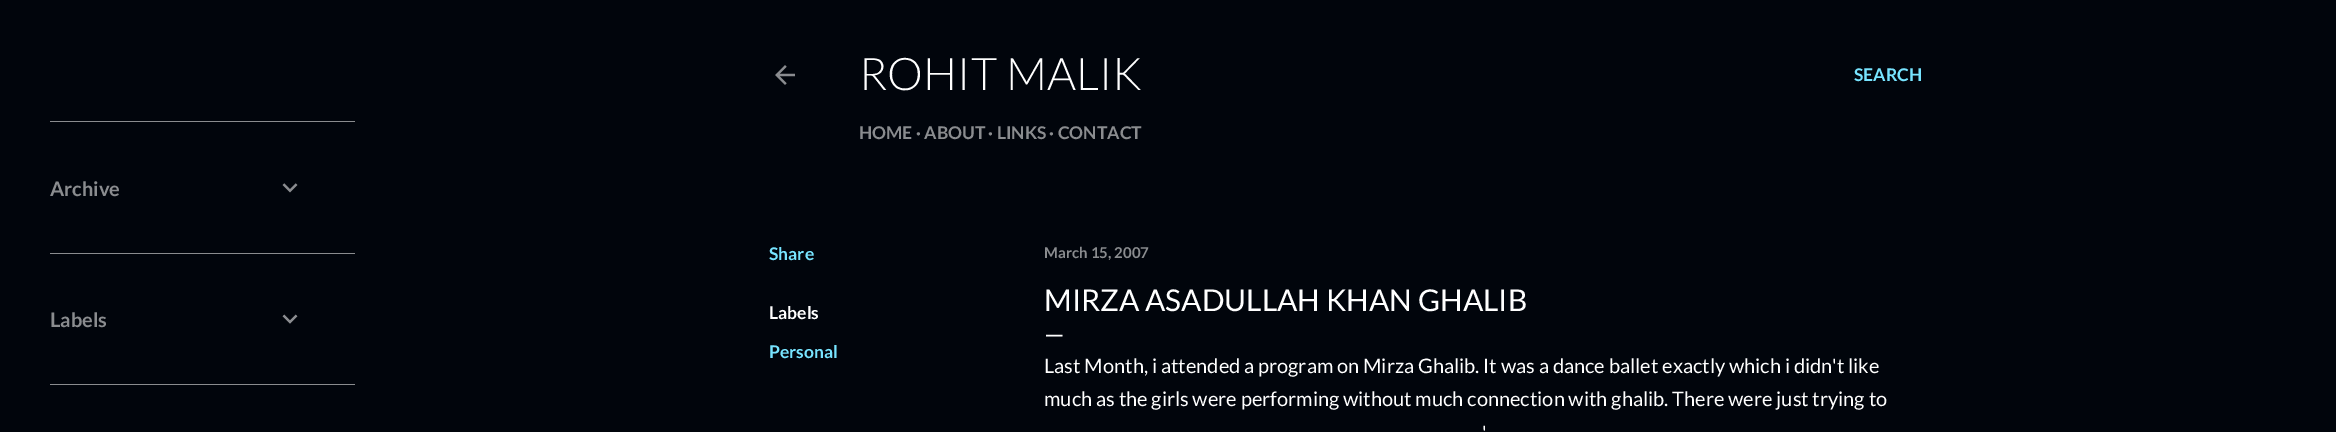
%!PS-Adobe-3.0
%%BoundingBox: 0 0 2336 432
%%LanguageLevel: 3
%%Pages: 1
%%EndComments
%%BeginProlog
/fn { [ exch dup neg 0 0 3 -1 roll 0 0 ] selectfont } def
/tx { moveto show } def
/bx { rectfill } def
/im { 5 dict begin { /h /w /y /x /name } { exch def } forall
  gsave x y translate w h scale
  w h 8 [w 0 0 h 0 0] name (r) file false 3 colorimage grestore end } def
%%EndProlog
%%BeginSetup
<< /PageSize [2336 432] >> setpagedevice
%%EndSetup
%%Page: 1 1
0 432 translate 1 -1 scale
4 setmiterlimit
0.004 0.02 0.047 setrgbcolor
0 0 2336 432 bx
0.541 0.549 0.561 setrgbcolor
50 121 305 1 bx
/Lato-Bold 20 fn
(Archive) 50 196 tx
(image0.raw) 282 183 16 10 im
50 253 305 1 bx
(Labels) 50 327 tx
(image1.raw) 282 314 16 10 im
50 384 305 1 bx
(image2.raw) 775 65 20 20 im
/Lato-Light 45 fn
1 setgray
(ROHIT MALIK) 859 90 tx
/Lato-Bold 17.5 fn
0.541 0.549 0.561 setrgbcolor
(HOME · ABOUT · LINKS · CONTACT) 859 139 tx
0.467 0.894 1 setrgbcolor
(SEARCH) 1854 81 tx
(Share) 769 260 tx
1 setgray
(Labels) 769 319 tx
0.467 0.894 1 setrgbcolor
(Personal) 769 358 tx
/Lato-Bold 15 fn
0.541 0.549 0.561 setrgbcolor
(March 15, 2007) 1044 258 tx
/Lato-Regular 30 fn
1 setgray
(MIRZA ASADULLAH KHAN GHALIB) 1044 311 tx
/Lato-Regular 25 fn
(—) 1044 343 tx
/Lato-Regular 20 fn
(Last Month, i attended a program on Mirza Ghalib. It was a dance ballet exactly which i didn't like) 1044 373 tx
(much as the girls were performing without much connection with ghalib. There were just trying to) 1044 406 tx
(') 1482 440 tx
showpage
%%EOF
